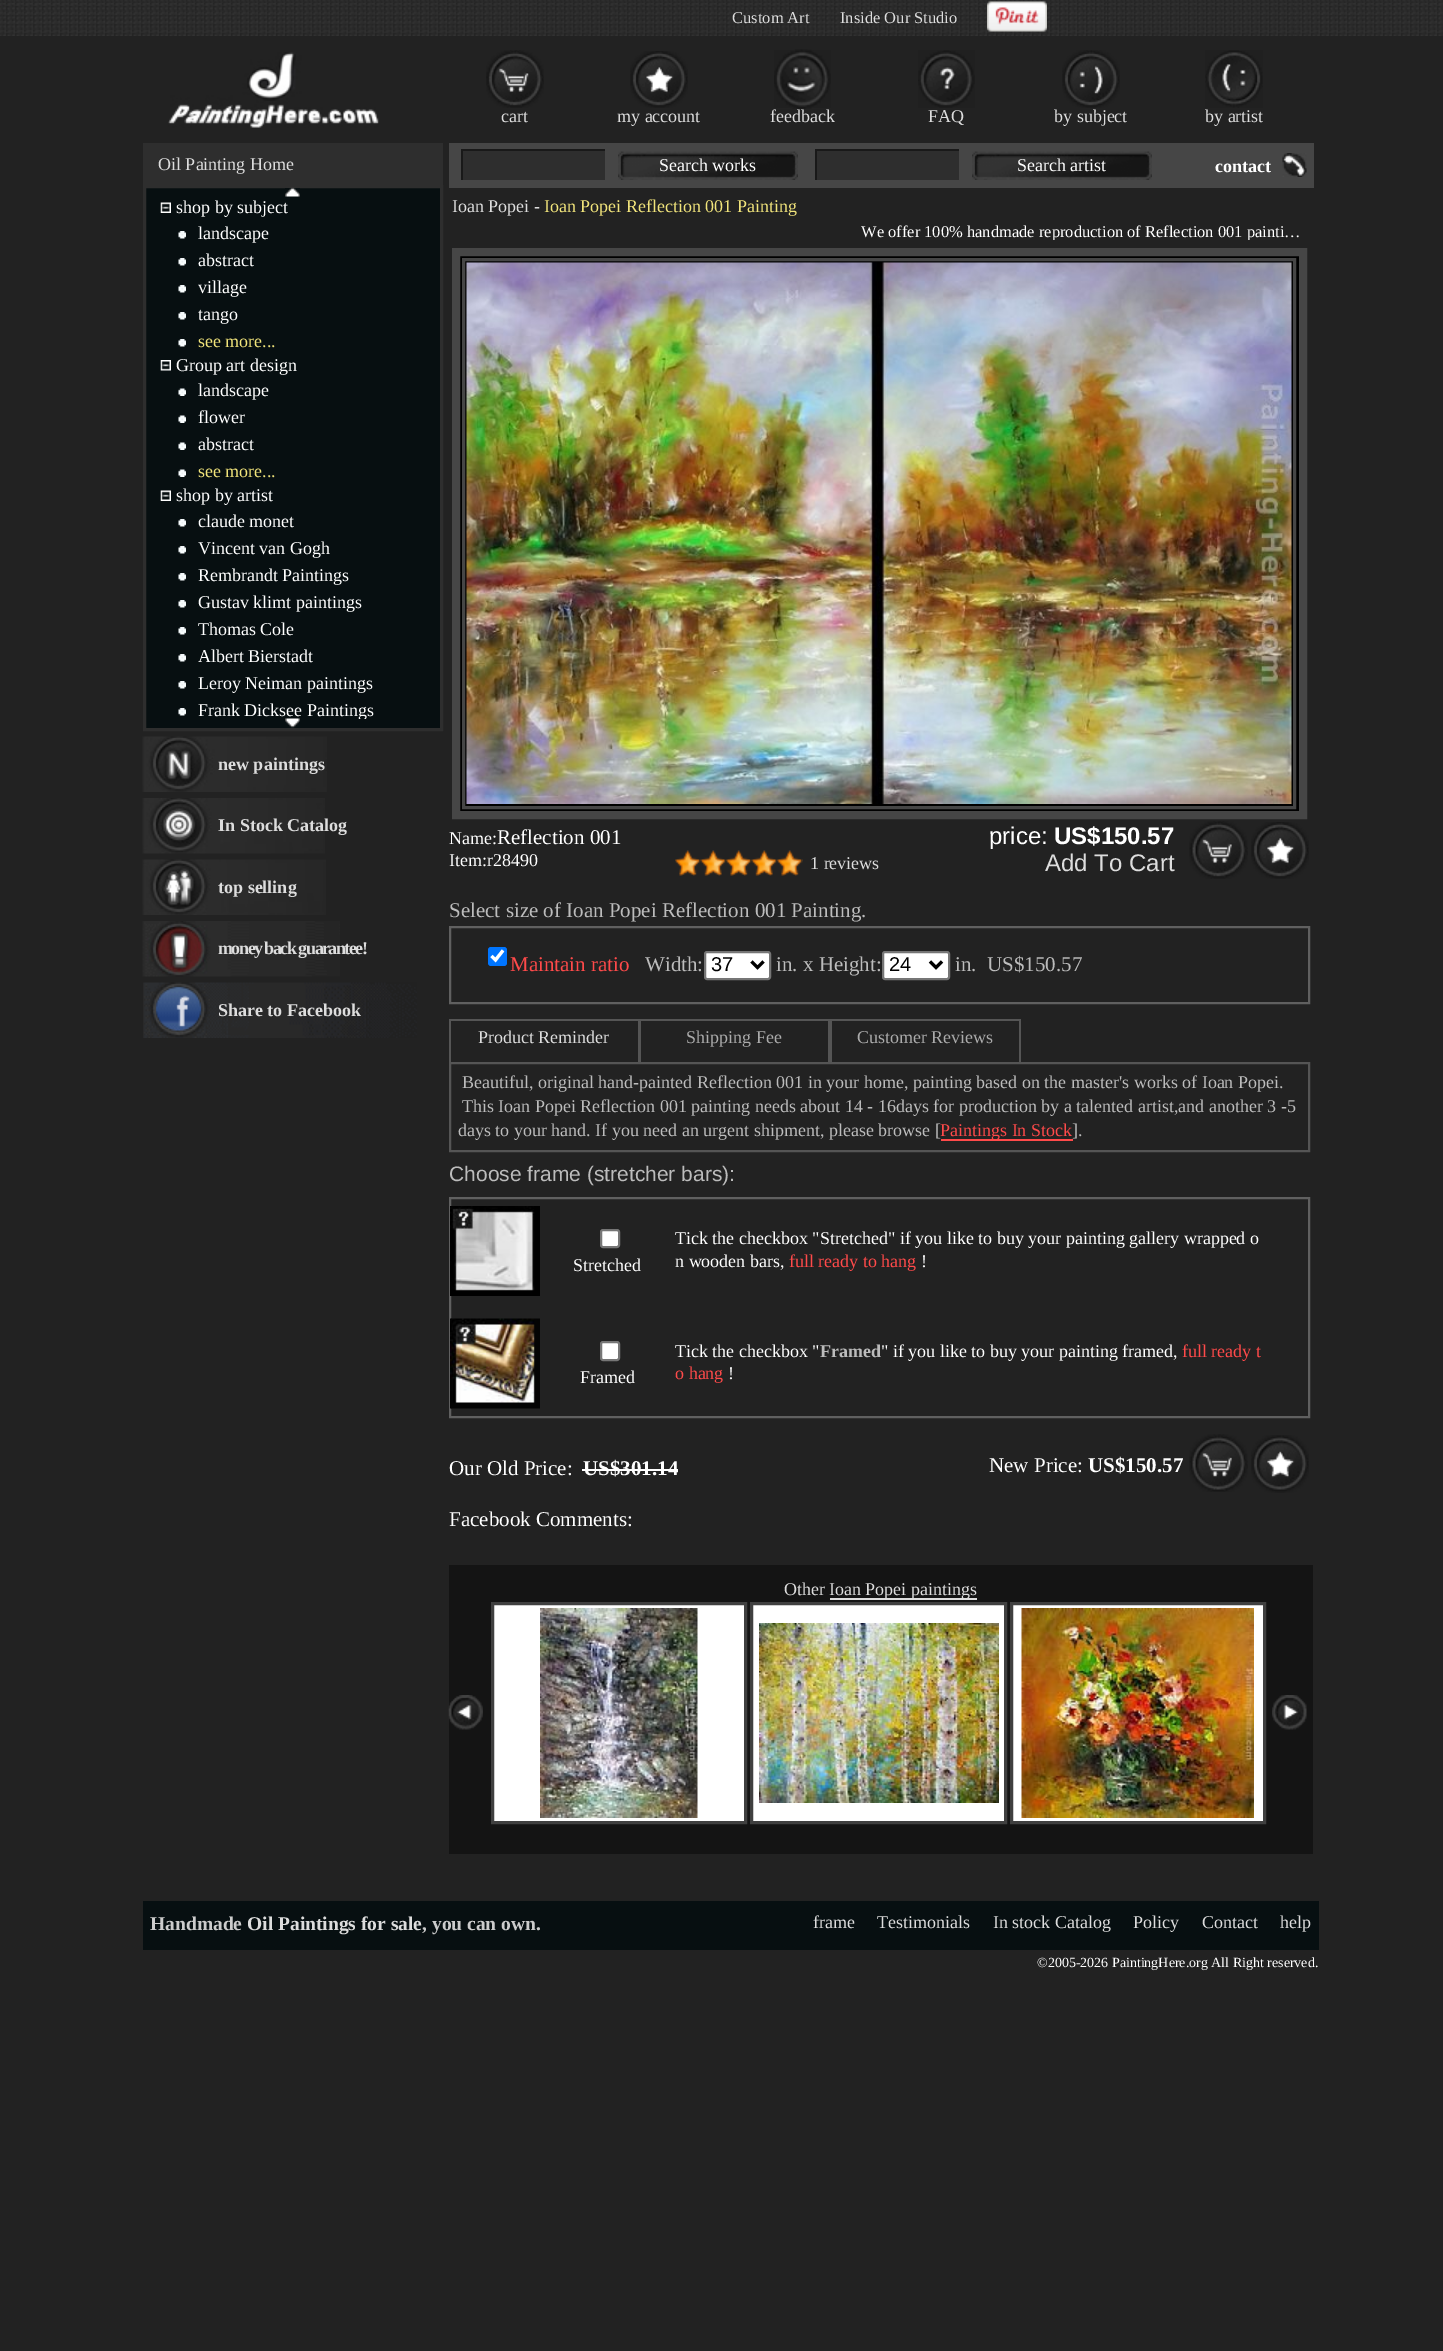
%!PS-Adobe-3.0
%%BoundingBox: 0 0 1443 2351
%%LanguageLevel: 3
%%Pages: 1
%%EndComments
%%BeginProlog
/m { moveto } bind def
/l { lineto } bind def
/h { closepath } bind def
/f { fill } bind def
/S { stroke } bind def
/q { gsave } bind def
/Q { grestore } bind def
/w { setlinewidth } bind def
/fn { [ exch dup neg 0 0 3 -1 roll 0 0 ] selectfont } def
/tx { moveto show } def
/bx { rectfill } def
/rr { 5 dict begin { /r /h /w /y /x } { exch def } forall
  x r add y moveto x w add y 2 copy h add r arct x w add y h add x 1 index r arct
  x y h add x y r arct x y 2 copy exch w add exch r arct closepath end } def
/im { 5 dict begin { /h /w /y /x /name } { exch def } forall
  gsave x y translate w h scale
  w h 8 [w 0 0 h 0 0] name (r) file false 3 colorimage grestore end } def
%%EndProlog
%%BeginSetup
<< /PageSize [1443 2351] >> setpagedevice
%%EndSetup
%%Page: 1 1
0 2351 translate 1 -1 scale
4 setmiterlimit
0.133 setgray
0 0 1443 2351 bx
(image0.raw) 0 0 1443 36 im
/LiberationSerif-Regular 16.5 fn
0.867 setgray
(Custom Art) 732 23 tx
(Inside Our Studio) 840 23 tx
(image1.raw) 987 1 60 31 im
(image2.raw) 1107 0 188 36 im
(image3.raw) 168 52 211 76 im
(image4.raw) 486 50 58 58 im
/LiberationSerif-Regular 18 fn
(cart) 501 122 tx
(image5.raw) 630 51 58 57 im
(my account) 617 122 tx
(image6.raw) 774 49 57 60 im
(feedback) 770 122 tx
(image7.raw) 918 50 57 58 im
(FAQ) 928 122 tx
(image8.raw) 1062 50 58 58 im
(by subject) 1054 122 tx
(image9.raw) 1205 50 58 58 im
(by artist) 1205 122 tx
0.18 setgray
143 143 300 42 bx
0.867 setgray
(Oil Painting Home) 158 170 tx
0.027 0.059 0.067 setrgbcolor
144.5 186.5 m 441.5 186.5 l 441.5 729.5 l 144.5 729.5 l h q f Q
0.18 setgray
3 w
S
(image10.raw) 285 187 15 10 im
(image11.raw) 160 202 11 11 im
1 setgray
(shop by subject) 176 213 tx
(image12.raw) 178 231 8 8 im
(landscape) 198 239 tx
(image12.raw) 178 258 8 8 im
(abstract) 198 266 tx
(image12.raw) 178 285 8 8 im
(village) 198 293 tx
(image12.raw) 178 312 8 8 im
(tango) 198 320 tx
(image12.raw) 178 339 8 8 im
0.945 0.894 0.482 setrgbcolor
(see more...) 198 347 tx
(image13.raw) 160 360 11 11 im
1 setgray
(Group art design) 176 371 tx
(image14.raw) 178 388 8 8 im
(landscape) 198 396 tx
(image14.raw) 178 415 8 8 im
(flower) 198 423 tx
(image14.raw) 178 442 8 8 im
(abstract) 198 450 tx
(image14.raw) 178 469 8 8 im
0.945 0.894 0.482 setrgbcolor
(see more...) 198 477 tx
(image11.raw) 160 490 11 11 im
1 setgray
(shop by artist) 176 501 tx
(image12.raw) 178 519 8 8 im
(claude monet) 198 527 tx
(image12.raw) 178 546 8 8 im
(Vincent van Gogh) 198 554 tx
(image12.raw) 178 573 8 8 im
(Rembrandt Paintings) 198 581 tx
(image12.raw) 178 600 8 8 im
(Gustav klimt paintings) 198 608 tx
(image12.raw) 178 627 8 8 im
(Thomas Cole) 198 635 tx
(image12.raw) 178 654 8 8 im
(Albert Bierstadt) 198 662 tx
(image12.raw) 178 681 8 8 im
(Leroy Neiman paintings) 198 689 tx
(image12.raw) 178 708 8 8 im
(image15.raw) 285 718 15 10 im
q
161 507 271 212 rectclip
(Frank Dicksee Paintings) 198 716 tx
Q
(image16.raw) 142 736 185 56 im
/LiberationSerif-Bold 18 fn
0.867 setgray
(new paintings) 218 770 tx
(image17.raw) 142 798 183 56 im
(In Stock Catalog) 218 831 tx
(image18.raw) 142 859 184 56 im
(top selling) 218 893 tx
(image19.raw) 142 921 198 56 im
218 954 m -1.5 0 (money back guarantee!) ashow
(image20.raw) 143 982 274 56 im
(Share to Facebook) 218 1016 tx
0.275 setgray
449 143 865 45 bx
0.18 setgray
463 151 142 29 bx
0.098 setgray
461 149 144 2 bx
461 149 2 31 bx
(image21.raw) 618 151 180 29 im
/LiberationSerif-Regular 18 fn
1 setgray
(Search works) 659 171 tx
0.18 setgray
817 151 142 29 bx
0.098 setgray
815 149 144 2 bx
815 149 2 31 bx
(image21.raw) 972 151 180 29 im
1 setgray
(Search artist) 1017 171 tx
(image22.raw) 1282 153 25 24 im
/LiberationSerif-Bold 18 fn
(contact) 1215 172 tx
/LiberationSerif-Regular 18 fn
0.867 setgray
(Ioan Popei -) 452 212 tx
0.945 0.894 0.482 setrgbcolor
(Ioan Popei Reflection 001 Painting) 544 212 tx
q
861 222 441 18 rectclip
/LiberationSerif-Regular 16.5 fn
1 setgray
(We offer 100% handmade reproduction of Reflection 001 painti…) 861 237 tx
Q
0 setgray
456 252 m 1303 252 l 1303 815 l 456 815 l h q f Q
0.275 setgray
8 w
S
3 w
463.5 259.5 831 548 rectstroke
(image23.raw) 466 262 826 542 im
1 setgray
(Name:) 449 844 tx
/LiberationSerif-Regular 21 fn
(Reflection 001) 497 844 tx
/LiberationSerif-Regular 18 fn
(Item:r28490) 449 866 tx
(image24.raw) 675 850 128 26 im
(image25.raw) 675 850 128 26 im
0.867 setgray
(1 reviews) 810 869 tx
/LiberationSans-Regular 24 fn
1 setgray
(price:) 989 844 tx
/LiberationSans-Bold 24 fn
(US$150.57) 1054 844 tx
/LiberationSans-Regular 24 fn
0.867 setgray
(Add To Cart) 1045 871 tx
(image26.raw) 1189 821 59 58 im
(image27.raw) 1251 822 58 57 im
/LiberationSerif-Regular 21 fn
0.737 setgray
(Select size of Ioan Popei Reflection 001 Painting.) 449 917 tx
0.376 setgray
2 w
450 927 859 76 rectstroke
0 0.459 1 setrgbcolor
488 947 19 19 3 rr f
1 setgray
3.1 w
491.5 956 m 495.5 960 l 503 950.5 l S
1 0.29 0.29 setrgbcolor
(Maintain ratio) 510 971 tx
0.737 setgray
(Width:) 645 971 tx
1 setgray
705 952 65 27 2 rr q f Q
0.463 setgray
2 w
S
0 setgray
3 w
751.5 961.5 m 757.5 967.5 l 763.5 961.5 l S
/LiberationSans-Regular 20 fn
(37) 711 971 tx
/LiberationSerif-Regular 21 fn
0.737 setgray
(in. x Height:) 776 971 tx
1 setgray
883 952 66 27 2 rr q f Q
0.463 setgray
2 w
S
0 setgray
3 w
930 961.5 m 936 967.5 l 942 961.5 l S
/LiberationSans-Regular 20 fn
(24) 889 971 tx
/LiberationSerif-Regular 21 fn
0.737 setgray
(in.) 955 971 tx
(US$150.57) 987 971 tx
0.333 setgray
449 1019 571 2 bx
638 1019 3 43 bx
449 1019 2 43 bx
/LiberationSerif-Regular 18 fn
0.867 setgray
(Product Reminder) 478 1043 tx
0.333 setgray
828 1019 4 43 bx
0.671 setgray
(Shipping Fee) 686 1043 tx
0.333 setgray
1019 1019 2 43 bx
0.671 setgray
(Customer Reviews) 857 1043 tx
0.333 setgray
2 w
450 1063 859 88 rectstroke
0.737 setgray
(Beautiful, original hand-painted Reflection 001 in your home, painting based on the master's works of Ioan Popei.) 462 1088 tx
(This Ioan Popei Reflection 001 painting needs about 14 - 16days for production by a talented artist,and another 3 -5) 462 1112 tx
(days to your hand. If you need an urgent shipment, please browse [) 458 1136 tx
1 0.29 0.29 setrgbcolor
941 1139 132 2 bx
(Paintings In Stock) 940 1136 tx
0.737 setgray
(].) 1072 1136 tx
/LiberationSans-Regular 21 fn
(Choose frame \(stretcher bars\):) 449 1181 tx
0.376 setgray
450 1198 859 219 rectstroke
(image28.raw) 450 1206 90 90 im
1 setgray
601 1230 18 17 2 rr q f Q
0.463 setgray
S
/LiberationSerif-Regular 18 fn
1 setgray
(Stretched) 573 1271 tx
(Tick the checkbox "Stretched" if you like to buy your painting gallery wrapped o) 675 1244 tx
(n wooden bars,) 675 1267 tx
1 0.29 0.29 setrgbcolor
(full ready to hang) 789 1267 tx
1 setgray
(!) 921 1267 tx
(image29.raw) 450 1318 90 91 im
601 1342 18 18 2 rr q f Q
0.463 setgray
S
1 setgray
(Framed) 580 1383 tx
(Tick the checkbox ") 675 1357 tx
/LiberationSerif-Bold 18 fn
0.737 setgray
(Framed) 820 1357 tx
/LiberationSerif-Regular 18 fn
1 setgray
(" if you like to buy your painting framed,) 881 1357 tx
1 0.29 0.29 setrgbcolor
(full ready t) 1182 1357 tx
(o hang) 675 1379 tx
1 setgray
(!) 728 1379 tx
/LiberationSerif-Regular 21 fn
(Our Old Price:) 449 1475 tx
/LiberationSerif-Bold 21 fn
(US$301.14) 583 1475 tx
582 1469 96 2 bx
/LiberationSerif-Regular 21 fn
(New Price:) 989 1472 tx
/LiberationSerif-Bold 21 fn
(US$150.57) 1088 1472 tx
(image30.raw) 1189 1434 59 58 im
(image31.raw) 1251 1435 58 58 im
/LiberationSerif-Regular 21 fn
(Facebook Comments:) 449 1526 tx
0.078 setgray
449 1565 864 289 bx
/LiberationSerif-Regular 18 fn
0.867 setgray
(Other) 784 1595 tx
830 1598 147 2 bx
(Ioan Popei paintings) 829 1595 tx
(image32.raw) 448 1695 35 35 im
1 setgray
492.5 1603.5 m 745.5 1603.5 l 745.5 1822.5 l 492.5 1822.5 l h q f Q
0.251 setgray
3 w
S
(image33.raw) 540 1608 158 210 im
1 setgray
751.5 1603.5 m 1005.5 1603.5 l 1005.5 1822.5 l 751.5 1822.5 l h q f Q
0.251 setgray
S
(image34.raw) 759 1623 240 180 im
1 setgray
1011.5 1603.5 m 1264.5 1603.5 l 1264.5 1822.5 l 1011.5 1822.5 l h q f Q
0.251 setgray
S
(image35.raw) 1021 1608 233 210 im
(image36.raw) 1272 1695 35 35 im
0.027 0.059 0.067 setrgbcolor
143 1901 1176 49 bx
/LiberationSerif-Bold 19.5 fn
0.8 setgray
(Handmade) 150 1930 tx
0.867 setgray
(Oil Paintings for sale) 247 1930 tx
0.8 setgray
(, you can own.) 422 1930 tx
/LiberationSerif-Regular 18 fn
0.867 setgray
(frame) 813 1928 tx
(Testimonials) 877 1928 tx
(In stock Catalog) 993 1928 tx
(Policy) 1133 1928 tx
(Contact) 1202 1928 tx
(help) 1280 1928 tx
/LiberationSerif-Regular 14 fn
1 setgray
(©2005-2026 PaintingHere.org All Right reserved.) 1037 1967 tx
showpage
%%EOF
